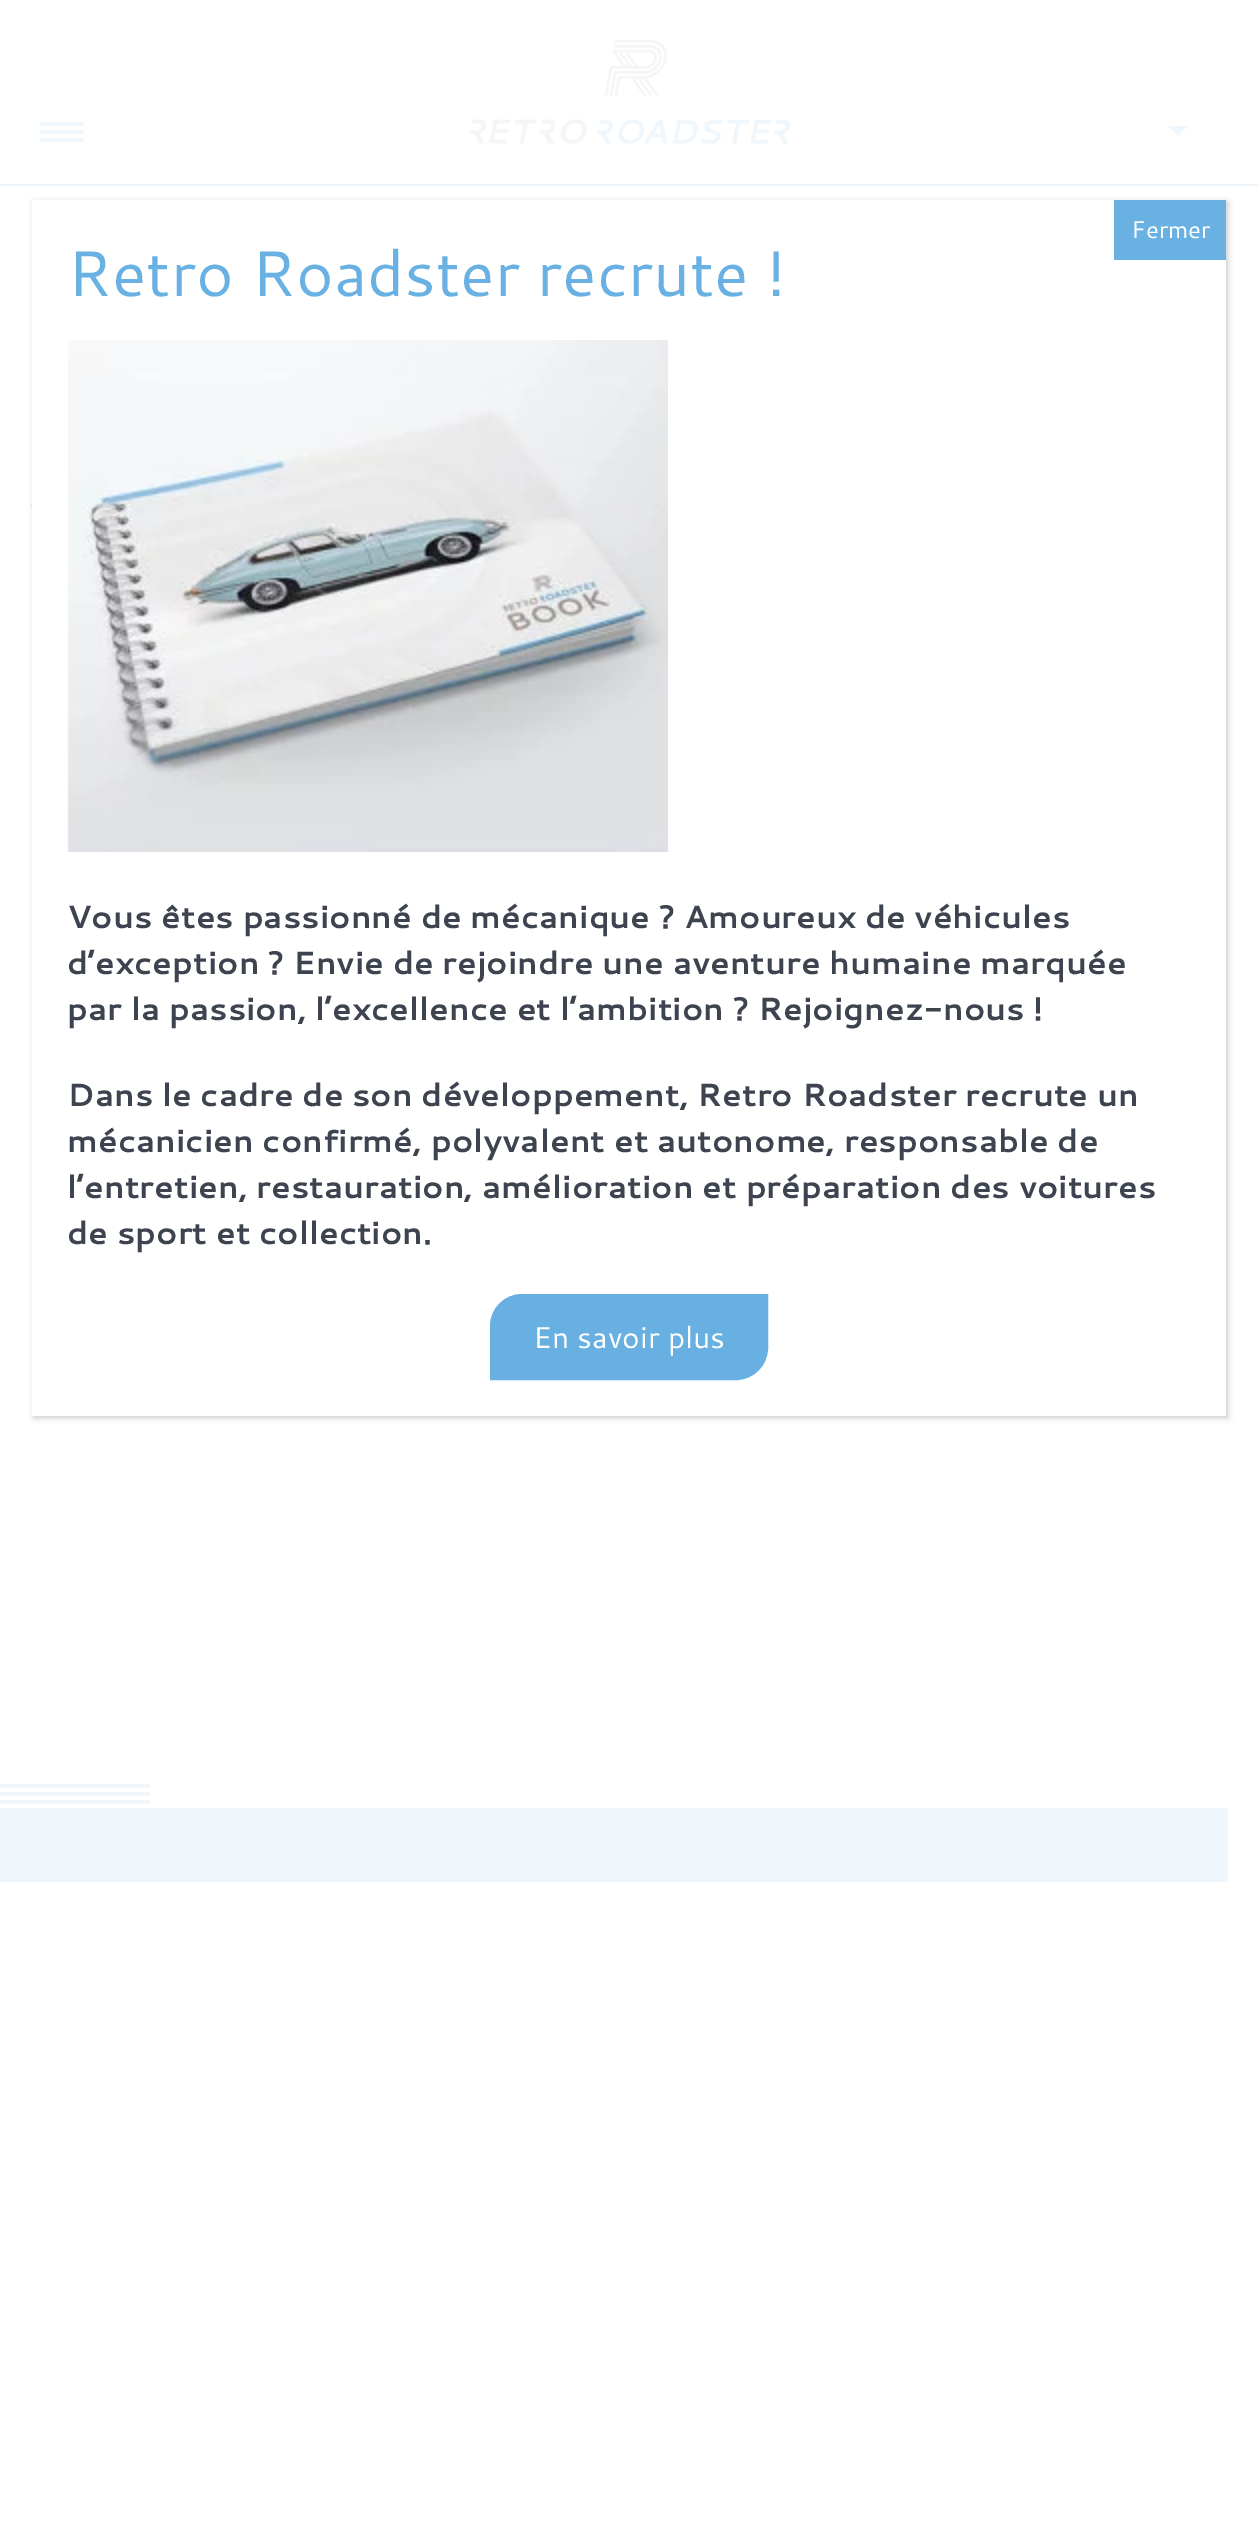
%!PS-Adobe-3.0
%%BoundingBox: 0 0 1258 2538
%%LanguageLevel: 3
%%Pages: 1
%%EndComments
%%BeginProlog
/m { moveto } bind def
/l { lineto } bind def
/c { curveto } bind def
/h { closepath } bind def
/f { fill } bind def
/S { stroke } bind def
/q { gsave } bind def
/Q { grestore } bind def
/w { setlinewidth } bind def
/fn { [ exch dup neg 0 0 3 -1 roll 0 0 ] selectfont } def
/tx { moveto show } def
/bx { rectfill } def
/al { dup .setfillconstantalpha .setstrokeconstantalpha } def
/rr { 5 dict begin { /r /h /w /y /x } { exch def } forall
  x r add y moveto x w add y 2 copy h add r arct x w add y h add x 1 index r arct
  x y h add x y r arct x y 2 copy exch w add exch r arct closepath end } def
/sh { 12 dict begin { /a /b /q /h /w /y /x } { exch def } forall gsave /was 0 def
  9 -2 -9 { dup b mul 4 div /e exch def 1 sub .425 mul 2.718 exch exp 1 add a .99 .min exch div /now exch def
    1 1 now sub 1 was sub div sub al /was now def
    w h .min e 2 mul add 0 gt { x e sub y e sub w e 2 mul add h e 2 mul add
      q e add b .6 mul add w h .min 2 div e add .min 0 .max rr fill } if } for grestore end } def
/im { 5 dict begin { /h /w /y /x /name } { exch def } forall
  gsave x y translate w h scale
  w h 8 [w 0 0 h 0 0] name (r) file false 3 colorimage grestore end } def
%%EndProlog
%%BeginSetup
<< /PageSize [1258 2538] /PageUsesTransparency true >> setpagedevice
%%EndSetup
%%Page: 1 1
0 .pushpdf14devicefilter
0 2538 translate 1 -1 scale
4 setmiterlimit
1 setgray
0 0 1258 2538 bx
0.941 0.969 0.988 setrgbcolor
0 184 1258 2 bx
(image0.raw) 469 40 321 104 im
40 122 44 4 2 rr f
40 130 44 4 2 rr f
40 138 44 4 2 rr f
1168 126 m 1188 126 l 1178 136 l h f
(image1.raw) 30 504 2 5 im
0 1808 1228 74 bx
0 1784 150 4 bx
0 1792 150 4 bx
0 1800 150 4 bx
0.008 setgray
34 202 1194 1216 0 3 0.2 sh
1 setgray
32 200 1194 1216 bx
0.412 0.694 0.89 setrgbcolor
1114 200 112 60 bx
/Cantarell-Regular 24 fn
1 setgray
(Fermer) 1131 238 tx
/Cantarell-Regular 64 fn
0.412 0.694 0.89 setrgbcolor
(Retro Roadster recrute !) 67 296 tx
(image2.raw) 67 340 601 512 im
/Cantarell-Bold 32 fn
0.239 0.263 0.31 setrgbcolor
(Vous êtes passionné de mécanique ? Amoureux de véhicules) 67 928 tx
(d’exception ? Envie de rejoindre une aventure humaine marquée) 67 974 tx
(par la passion, l’excellence et l’ambition ? Rejoignez-nous !) 67 1020 tx
(Dans le cadre de son développement, Retro Roadster recrute un) 67 1106 tx
(mécanicien confirmé, polyvalent et autonome, responsable de) 67 1152 tx
(l’entretien, restauration, amélioration et préparation des voitures) 67 1198 tx
(de sport et collection.) 67 1244 tx
0.412 0.69 0.886 setrgbcolor
522 1295 m 767 1295 l 767 1348 l 767 1365 753 1379 736 1379 c 491 1379 l 491 1326 l 491 1309 505 1295 522 1295 c h q f Q
2 w
S
/Cantarell-Regular 30 fn
1 setgray
(En savoir plus) 533 1348 tx
.poppdf14devicefilter showpage
%%EOF
